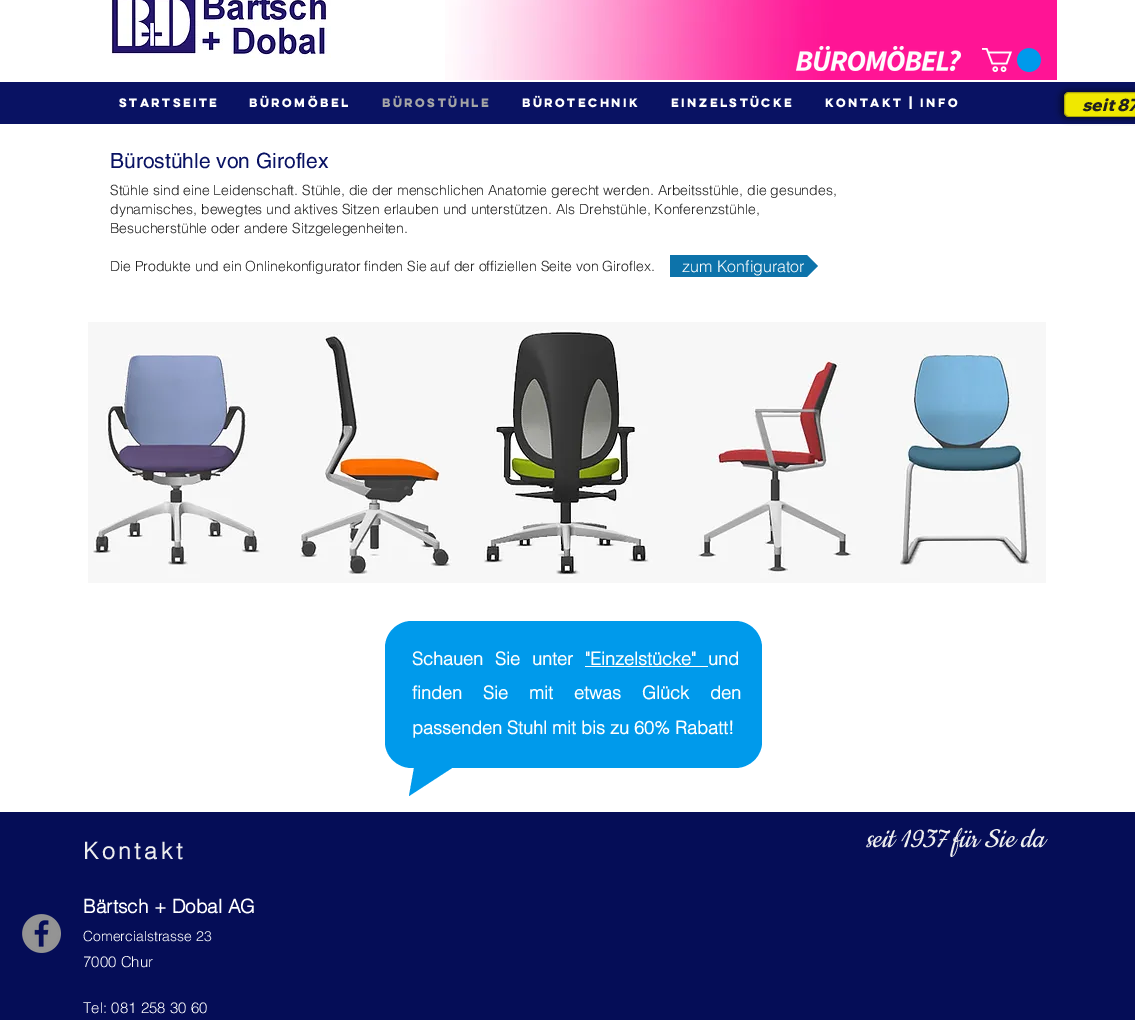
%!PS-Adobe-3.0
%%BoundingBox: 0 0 1135 1020
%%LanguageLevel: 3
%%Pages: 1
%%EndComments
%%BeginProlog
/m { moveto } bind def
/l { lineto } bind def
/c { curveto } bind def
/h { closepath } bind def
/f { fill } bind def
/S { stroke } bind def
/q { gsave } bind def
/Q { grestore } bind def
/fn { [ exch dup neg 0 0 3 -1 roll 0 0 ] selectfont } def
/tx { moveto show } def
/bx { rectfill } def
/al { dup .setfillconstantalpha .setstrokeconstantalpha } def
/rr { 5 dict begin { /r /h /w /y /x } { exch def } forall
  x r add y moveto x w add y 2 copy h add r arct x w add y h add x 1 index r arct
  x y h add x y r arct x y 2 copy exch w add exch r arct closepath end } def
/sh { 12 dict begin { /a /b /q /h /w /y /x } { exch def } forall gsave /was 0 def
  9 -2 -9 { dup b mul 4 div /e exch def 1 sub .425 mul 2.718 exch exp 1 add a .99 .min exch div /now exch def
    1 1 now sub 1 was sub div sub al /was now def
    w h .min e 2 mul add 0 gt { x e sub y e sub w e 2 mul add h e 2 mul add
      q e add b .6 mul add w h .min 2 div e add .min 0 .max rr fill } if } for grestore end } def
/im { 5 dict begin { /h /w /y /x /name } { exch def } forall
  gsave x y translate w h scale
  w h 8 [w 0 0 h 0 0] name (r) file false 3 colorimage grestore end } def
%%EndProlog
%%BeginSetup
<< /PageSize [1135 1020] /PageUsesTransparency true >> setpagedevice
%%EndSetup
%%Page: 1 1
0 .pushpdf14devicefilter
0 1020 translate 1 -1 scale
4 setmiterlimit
1 setgray
0 0 1135 1020 bx
(image0.raw) 111 0 220 58 im
(image1.raw) 445 0 612 80 im
(image2.raw) 796 46 165 25 im
(image3.raw) 982 48 59 24 im
0.035 0.071 0.388 setrgbcolor
0 82 1135 42 bx
/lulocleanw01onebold-Bold 11 fn
1 setgray
(Startseite) 119 107 tx
(Büromöbel) 249 107 tx
0.647 setgray
(Bürostühle) 382 107 tx
1 setgray
(Bürotechnik) 522 107 tx
(Einzelstücke) 671 107 tx
(Kontakt | Info) 825 107 tx
0 setgray
1061 91 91 27 6 3.5 0.64 sh
0.941 0.91 0 setrgbcolor
1064 92 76 25 5 rr f
0.32 al
0.122 setgray
1064.5 92.5 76 24 4.5 rr S
/WixMadeforDisplay-ExtraBoldItalic 17 fn
1 al
(seit 87) 1082 111 tx
/helvetica-Regular 21 fn
0.035 0.071 0.388 setrgbcolor
(Bürostühle von Giroflex) 110 168 tx
/helvetica-Light 14 fn
0.122 setgray
(Stühle sind eine Leidenschaft. Stühle, die der menschlichen Anatomie gerecht werden. Arbeitsstühle, die gesundes,) 110 195 tx
(dynamisches, bewegtes und aktives Sitzen erlauben und unterstützen. Als Drehstühle, Konferenzstühle,) 110 214 tx
(Besucherstühle oder andere Sitzgelegenheiten.) 110 233 tx
(Die Produkte und ein Onlinekonfigurator finden Sie auf der offiziellen Seite von Giroflex.) 110 271 tx
0.051 0.451 0.667 setrgbcolor
670 255 98 22 bx
q
670 255 148 22 rectclip
818 266 m 768 266 l 768 216 l h 768 266 m 818 266 l 768 316 l h f
Q
/helvetica-Light 16 fn
1 setgray
(zum Konfigurator) 682 272 tx
(image4.raw) 88 322 958 261 im
0 0.604 0.922 setrgbcolor
412 621 m 735 621 l 750 621 762 633 762 648 c 762 742 l 762 756 750 768 735 768 c 452 768 l 409 796 l 414 768 l 412 768 l 397 768 385 756 385 742 c 385 648 l 385 633 397 621 412 621 c h f
/helvetica-Bold 18 fn
1 setgray
412 665 m 7 0 32 (Schauen Sie unter) widthshow
("Einzelstücke") 585 665 tx
585 666 123 1 bx
(und) 708 665 tx
412 699 m 16 0 32 (finden Sie mit etwas Glück den) widthshow
(passenden Stuhl mit bis zu 60% Rabatt!) 412 734 tx
0.02 0.051 0.341 setrgbcolor
0 812 1135 208 bx
(image5.raw) 22 914 39 39 im
/helvetica-Bold 23 fn
0.933 setgray
83 859 m 3.5 0 (Kontakt) ashow
/helvetica-Bold 19 fn
1 setgray
(Bärtsch + Dobal AG) 83 913 tx
/helvetica-Light 14 fn
(Comercialstrasse 23) 83 941 tx
/helvetica-Light 15 fn
(7000 Chur) 83 967 tx
(Tel: 081 258 30 60) 83 1013 tx
/Cookie-Italic 31 fn
0.933 setgray
(seit 1937 für Sie da) 866 847 tx
.poppdf14devicefilter showpage
%%EOF
